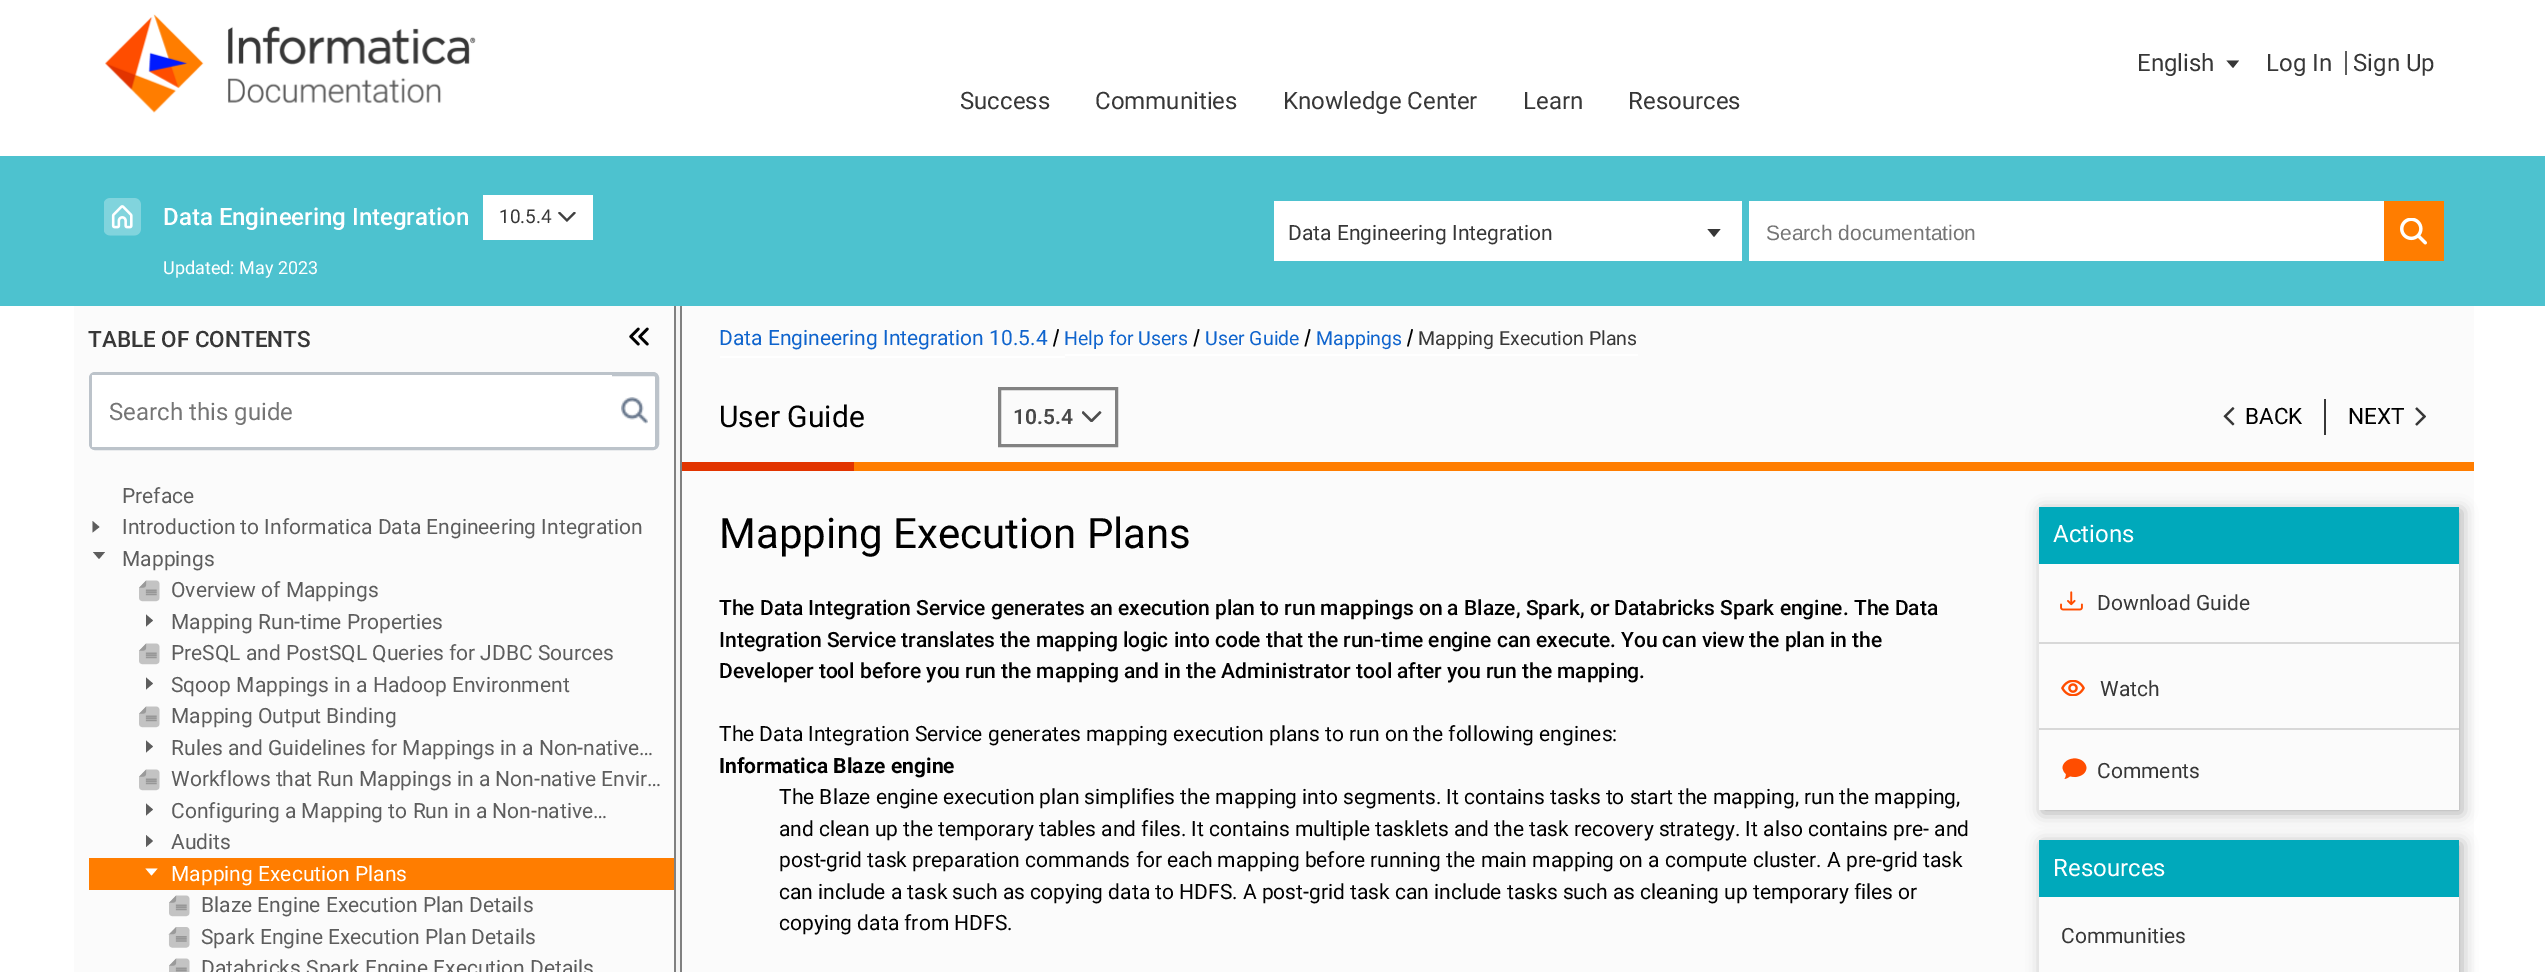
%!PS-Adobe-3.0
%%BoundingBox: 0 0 2545 972
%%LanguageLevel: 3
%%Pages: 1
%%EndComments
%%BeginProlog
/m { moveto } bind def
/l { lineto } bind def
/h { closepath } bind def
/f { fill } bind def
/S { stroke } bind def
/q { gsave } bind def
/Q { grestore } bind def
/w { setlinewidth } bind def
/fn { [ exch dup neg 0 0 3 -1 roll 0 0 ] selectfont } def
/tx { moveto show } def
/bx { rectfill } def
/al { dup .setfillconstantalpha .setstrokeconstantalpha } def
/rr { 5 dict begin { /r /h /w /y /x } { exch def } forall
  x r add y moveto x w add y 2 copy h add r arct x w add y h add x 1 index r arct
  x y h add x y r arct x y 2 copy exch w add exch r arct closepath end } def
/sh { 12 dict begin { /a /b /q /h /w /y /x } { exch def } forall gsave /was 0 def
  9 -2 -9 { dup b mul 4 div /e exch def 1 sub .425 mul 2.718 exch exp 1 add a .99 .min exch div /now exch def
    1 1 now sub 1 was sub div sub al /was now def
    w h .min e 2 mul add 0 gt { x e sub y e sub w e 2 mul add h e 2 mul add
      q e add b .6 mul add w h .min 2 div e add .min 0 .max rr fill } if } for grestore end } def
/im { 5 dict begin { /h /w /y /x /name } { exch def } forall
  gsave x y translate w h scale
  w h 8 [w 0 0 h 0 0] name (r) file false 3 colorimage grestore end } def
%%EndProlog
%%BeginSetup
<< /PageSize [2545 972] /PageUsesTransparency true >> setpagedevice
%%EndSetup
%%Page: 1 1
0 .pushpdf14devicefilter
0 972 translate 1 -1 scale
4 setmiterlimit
1 setgray
0 0 2545 972 bx
(image0.raw) 105 14 371 99 im
/Roboto-Regular 24 fn
0.216 setgray
(English) 2137 71 tx
2239 60.5 m 2233 68 l 2226.5 60.5 l h f
(Log In) 2266 71 tx
0.365 setgray
2345 51 2 24 bx
0.216 setgray
(Sign Up) 2353 71 tx
(Success) 960 109 tx
(Communities) 1095 109 tx
(Knowledge Center) 1283 109 tx
(Learn) 1523 109 tx
(Resources) 1628 109 tx
0.302 0.761 0.812 setrgbcolor
0 156 2545 150 bx
(image1.raw) 104 198 37 38 im
/Roboto-Medium 24 fn
1 setgray
(Data Engineering Integration) 163 225 tx
483 195 110 45 bx
/Roboto-Regular 19 fn
0.216 setgray
(10.5.4) 499 223 tx
(image2.raw) 558 212 18 10 im
/Roboto-Regular 18 fn
1 setgray
(Updated: May 2023) 163 274 tx
1274 201 468 60 bx
/Roboto-Regular 21 fn
0.216 setgray
(Data Engineering Integration) 1288 240 tx
1720.5 229 m 1714 237 l 1707.5 229 l h f
1 setgray
1749 201 635 60 bx
/LiberationSans-Regular 21 fn
0.459 setgray
(Search documentation) 1766 240 tx
1 0.49 0 setrgbcolor
2384 201 60 60 bx
(image3.raw) 2400 218 27 27 im
0.984 setgray
74 306 600 666 bx
/Roboto-Medium 22.5 fn
0.216 setgray
(TABLE OF CONTENTS) 88 347 tx
1 setgray
90 373 568 76 5 rr q f Q
0.737 0.765 0.792 setrgbcolor
2 w
S
91 375 565 73 2 rr S
1 setgray
92 375 520 72 bx
/Roboto-Regular 24 fn
0.459 setgray
(Search this guide) 109 420 tx
(image4.raw) 621 397 27 27 im
(image5.raw) 629 327 20 19 im
0.957 setgray
676 306 4 666 bx
0.502 setgray
680 306 2 666 bx
674 306 2 666 bx
/Roboto-Regular 21 fn
0.365 setgray
(Preface) 122 503 tx
92.5 521 m 99.5 527 l 92.5 532.5 l h f
(Introduction to Informatica Data Engineering Integration) 122 534 tx
105 552 m 99 559 l 93 552 l h f
(Mappings) 122 566 tx
(image6.raw) 139 580 21 22 im
(Overview of Mappings) 171 597 tx
146 614.5 m 153 620.5 l 146 626.5 l h f
(Mapping Run-time Properties) 171 629 tx
(image6.raw) 139 643 21 22 im
(PreSQL and PostSQL Queries for JDBC Sources) 171 660 tx
146 677.5 m 153 683.5 l 146 689.5 l h f
(Sqoop Mappings in a Hadoop Environment) 171 692 tx
(image6.raw) 139 706 21 22 im
(Mapping Output Binding) 171 723 tx
146 740.5 m 153 746.5 l 146 752.5 l h f
(Rules and Guidelines for Mappings in a Non-native…) 171 755 tx
(image6.raw) 139 769 21 22 im
(Workflows that Run Mappings in a Non-native Envir…) 171 786 tx
146 803.5 m 153 809.5 l 146 815.5 l h 146 835 m 153 841 l 146 847 l h f
(Configuring a Mapping to Run in a Non-native…) 171 818 tx
(Audits) 171 849 tx
1 0.49 0 setrgbcolor
89 858 585 32 bx
1 setgray
157.5 868.5 m 151.5 875.5 l 145.5 868.5 l h f
(Mapping Execution Plans) 171 881 tx
(image6.raw) 169 895 21 22 im
0.365 setgray
(Blaze Engine Execution Plan Details) 201 912 tx
(image7.raw) 168 927 22 21 im
(Spark Engine Execution Plan Details) 201 944 tx
(image8.raw) 169 958 21 14 im
(Databricks Spark Engine Execution Details) 201 975 tx
0.984 setgray
682 306 1792 666 bx
1 setgray
720 356 345 2 bx
0.059 0.392 0.804 setrgbcolor
(Data Engineering Integration 10.5.4) 719 345 tx
0 setgray
1057.5 329 m 1059 329.5 l 1054.5 346.5 l 1053 346.5 l h f
1 setgray
1065 354 573 2 bx
/Roboto-Regular 19.5 fn
0.059 0.392 0.804 setrgbcolor
(Help for Users) 1064 345 tx
0 setgray
1198 329 m 1199.5 329.5 l 1195 346.5 l 1193.5 346.5 l h f
0.059 0.392 0.804 setrgbcolor
(User Guide) 1205 345 tx
0 setgray
1309 329 m 1310.5 329.5 l 1306 346.5 l 1304.5 346.5 l h f
0.059 0.392 0.804 setrgbcolor
(Mappings) 1316 345 tx
0 setgray
1411.5 329 m 1413 329.5 l 1408.5 346.5 l 1407 346.5 l h f
0.216 setgray
(Mapping Execution Plans) 1418 345 tx
/Roboto-Regular 30 fn
0 setgray
(User Guide) 719 427 tx
0.51 setgray
3 w
999.5 388.5 117 57 rectstroke
/Roboto-SemiBold 21 fn
0.282 setgray
(10.5.4) 1013 424 tx
(image9.raw) 1082 411 20 11 im
(image10.raw) 2223 407 12 19 im
/Roboto-Regular 22.5 fn
0 setgray
(BACK) 2245 424 tx
0.216 setgray
2324 399 2 36 bx
0 setgray
(NEXT) 2348 424 tx
(image11.raw) 2415 407 11 19 im
1 0.49 0 setrgbcolor
854 462 1620 9 bx
0.886 0.204 0 setrgbcolor
682 462 172 9 bx
/Roboto-Regular 42 fn
0 setgray
(Mapping Execution Plans) 719 548 tx
/Roboto-Medium 21 fn
(The Data Integration Service generates an execution plan to run mappings on a Blaze, Spark, or Databricks Spark engine. The Data) 719 615 tx
(Integration Service translates the mapping logic into code that the run-time engine can execute. You can view the plan in the) 719 647 tx
(Developer tool before you run the mapping and in the Administrator tool after you run the mapping.) 719 678 tx
/Roboto-Regular 21 fn
(The Data Integration Service generates mapping execution plans to run on the following engines:) 719 741 tx
/Roboto-Bold 21 fn
(Informatica Blaze engine) 719 773 tx
/Roboto-Regular 21 fn
(The Blaze engine execution plan simplifies the mapping into segments. It contains tasks to start the mapping, run the mapping,) 779 804 tx
(and clean up the temporary tables and files. It contains multiple tasklets and the task recovery strategy. It also contains pre- and) 779 836 tx
(post-grid task preparation commands for each mapping before running the main mapping on a compute cluster. A pre-grid task) 779 867 tx
(can include a task such as copying data to HDFS. A post-grid task can include tasks such as cleaning up temporary files or) 779 899 tx
(copying data from HDFS.) 779 930 tx
q
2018 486 m 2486 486 l 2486 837 l 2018 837 l h 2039 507 m 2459 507 l 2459 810 l 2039 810 l h eoclip newpath
2042 510 420 303 0 7.5 0.3 sh
Q
0 0.663 0.733 setrgbcolor
2039 507 420 57 bx
/Roboto-Regular 24 fn
1 setgray
(Actions) 2053 542 tx
0.847 setgray
2039 642 420 2 bx
(image12.raw) 2060 591 23 20 im
/Roboto-Regular 21 fn
0.216 setgray
(Download Guide) 2097 610 tx
0.847 setgray
2039 728 420 2 bx
(image13.raw) 2061 680 24 16 im
0.216 setgray
(Watch) 2100 696 tx
(image14.raw) 2062 758 25 21 im
(Comments) 2097 778 tx
q
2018 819 m 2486 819 l 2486 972 l 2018 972 l h 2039 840 m 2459 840 l 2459 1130 l 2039 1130 l h eoclip newpath
0 setgray
2042 843 420 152 0 7.5 0.3 sh
Q
0 0.663 0.733 setrgbcolor
2039 840 420 57 bx
/Roboto-Regular 24 fn
1 setgray
(Resources) 2053 876 tx
/Roboto-Regular 21 fn
0.216 setgray
(Communities) 2061 943 tx
.poppdf14devicefilter showpage
%%EOF
